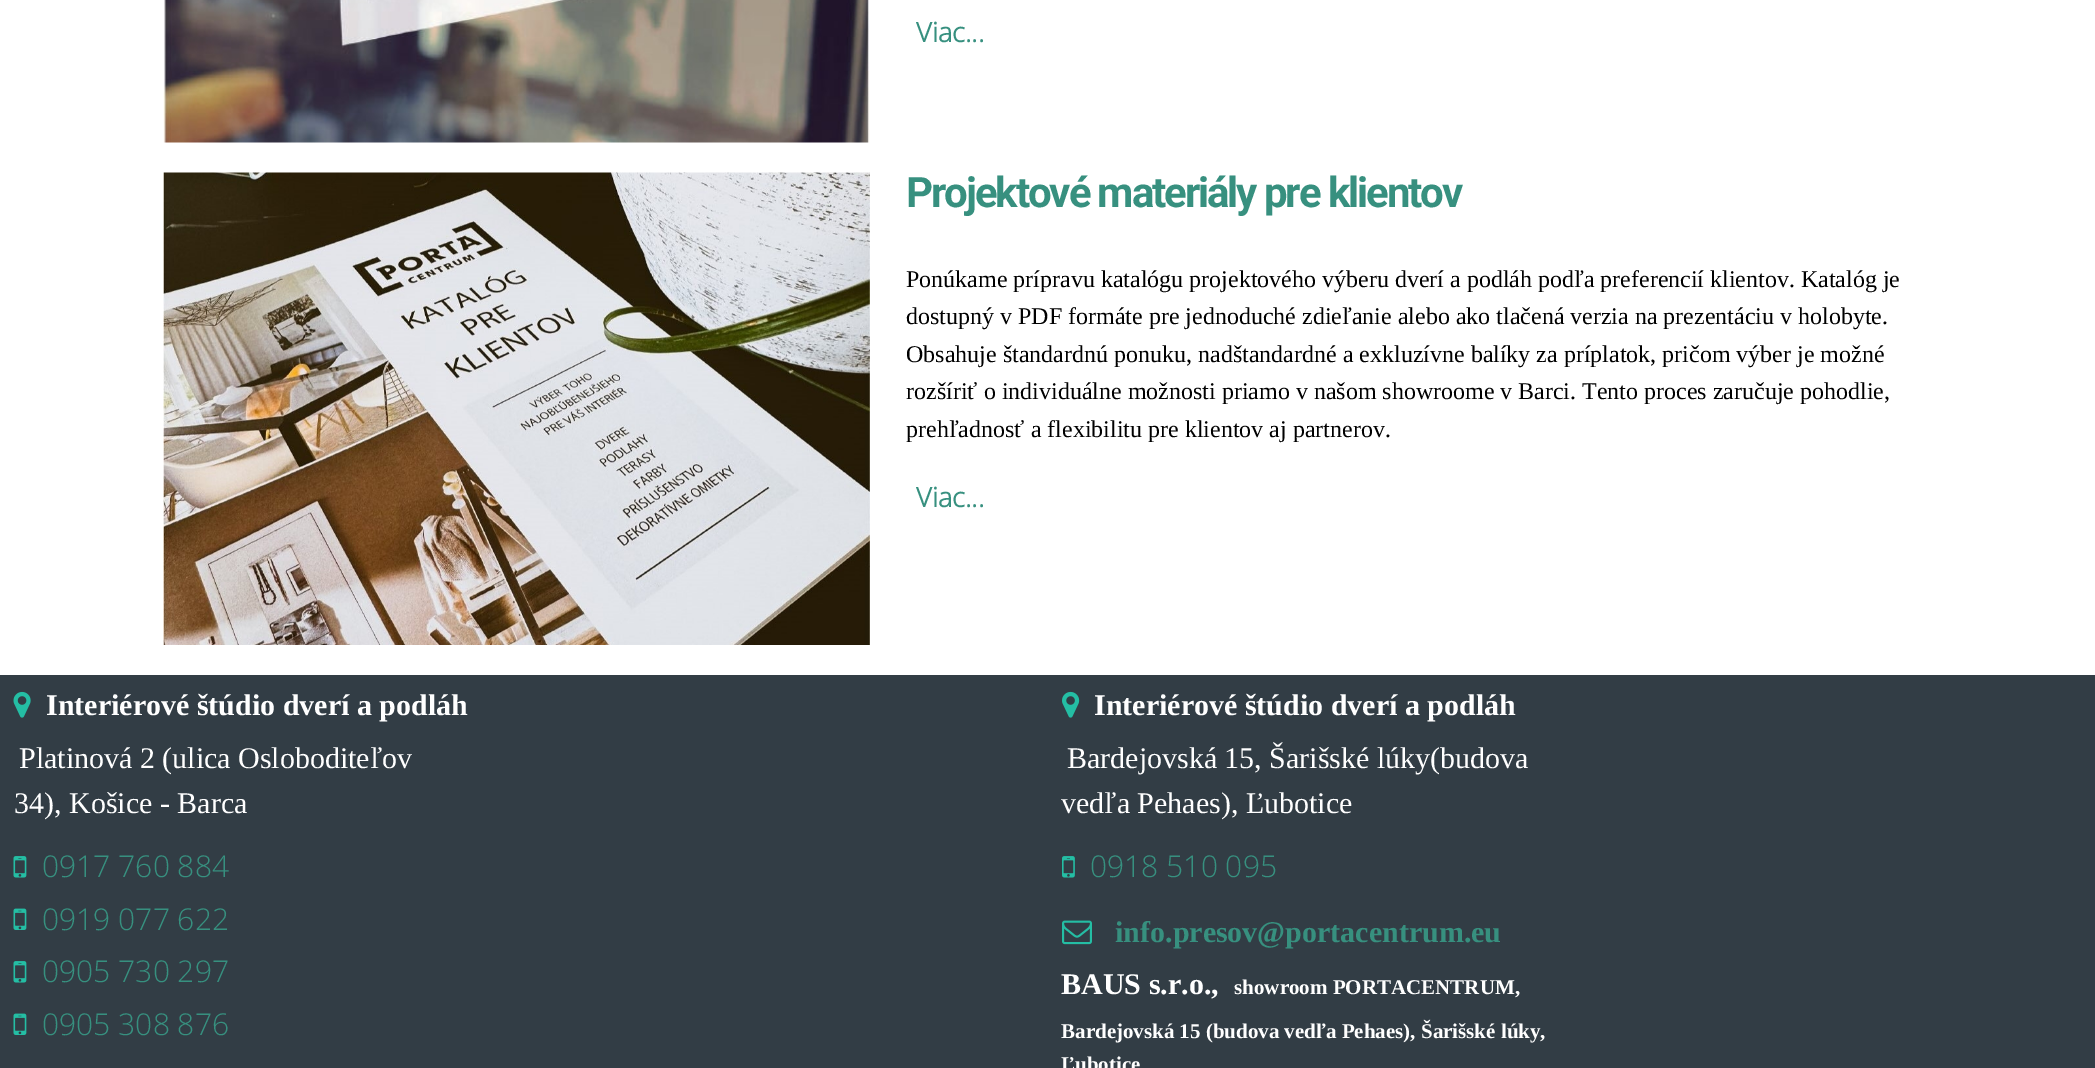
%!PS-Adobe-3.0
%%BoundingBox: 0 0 2095 1068
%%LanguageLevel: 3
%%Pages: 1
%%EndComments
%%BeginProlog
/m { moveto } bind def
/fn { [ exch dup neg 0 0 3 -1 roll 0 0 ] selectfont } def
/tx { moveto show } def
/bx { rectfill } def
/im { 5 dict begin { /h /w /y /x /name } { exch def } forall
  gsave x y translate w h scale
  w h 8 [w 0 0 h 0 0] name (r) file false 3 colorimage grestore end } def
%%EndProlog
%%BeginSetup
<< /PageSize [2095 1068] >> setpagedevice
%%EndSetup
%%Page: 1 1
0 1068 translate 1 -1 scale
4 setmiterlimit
1 setgray
0 0 2095 1068 bx
(image0.raw) 163 0 707 143 im
/OpenSans-Bold 27 fn
0.216 0.565 0.498 setrgbcolor
(Viac...) 916 42 tx
(image1.raw) 163 172 707 473 im
/Roboto-Bold 42 fn
906 207 m -2.1 0 (Projektové materiály pre klientov) ashow
/LiberationSerif-Regular 24 fn
0 setgray
(Ponúkame prípravu katalógu projektového výberu dverí a podláh podľa preferencií klientov. Katalóg je) 906 287 tx
(dostupný v PDF formáte pre jednoduché zdieľanie alebo ako tlačená verzia na prezentáciu v holobyte.) 906 324 tx
(Obsahuje štandardnú ponuku, nadštandardné a exkluzívne balíky za príplatok, pričom výber je možné) 906 362 tx
(rozšíriť o individuálne možnosti priamo v našom showroome v Barci. Tento proces zaručuje pohodlie,) 906 399 tx
(prehľadnosť a flexibilitu pre klientov aj partnerov.) 906 437 tx
/OpenSans-Bold 27 fn
0.216 0.565 0.498 setrgbcolor
(Viac...) 916 507 tx
0.196 0.239 0.271 setrgbcolor
0 675 2095 393 bx
(image2.raw) 13 691 18 27 im
/LiberationSerif-Bold 30 fn
1 setgray
(Interiérové štúdio dverí a podláh) 46 715 tx
/LiberationSerif-Regular 30 fn
(Platinová 2 \(ulica Osloboditeľov) 19 768 tx
(34\), Košice - Barca) 14 813 tx
(image3.raw) 13 856 14 22 im
/OpenSans-Light 30 fn
0.216 0.565 0.498 setrgbcolor
(0917 760 884) 42 877 tx
(image4.raw) 13 908 14 22 im
(0919 077 622) 42 930 tx
(image3.raw) 13 961 14 22 im
(0905 730 297) 42 982 tx
(image4.raw) 13 1013 14 22 im
(0905 308 876) 42 1035 tx
(image5.raw) 1062 691 18 27 im
/LiberationSerif-Bold 30 fn
1 setgray
(Interiérové štúdio dverí a podláh) 1094 715 tx
/LiberationSerif-Regular 30 fn
(Bardejovská 15, Šarišské lúky\(budova) 1067 768 tx
(vedľa Pehaes\), Ľubotice) 1061 813 tx
(image6.raw) 1062 856 13 22 im
/OpenSans-Light 30 fn
0.216 0.565 0.498 setrgbcolor
(0918 510 095) 1090 877 tx
(image7.raw) 1062 920 30 25 im
/LiberationSerif-Bold 30 fn
(info.presov@portacentrum.eu) 1115 942 tx
1 setgray
(BAUS s.r.o.,) 1061 994 tx
/LiberationSerif-Bold 21 fn
(showroom PORTACENTRUM,) 1234 994 tx
(Bardejovská 15 \(budova vedľa Pehaes\), Šarišské lúky,) 1061 1038 tx
(Ľubotice) 1061 1071 tx
showpage
%%EOF
